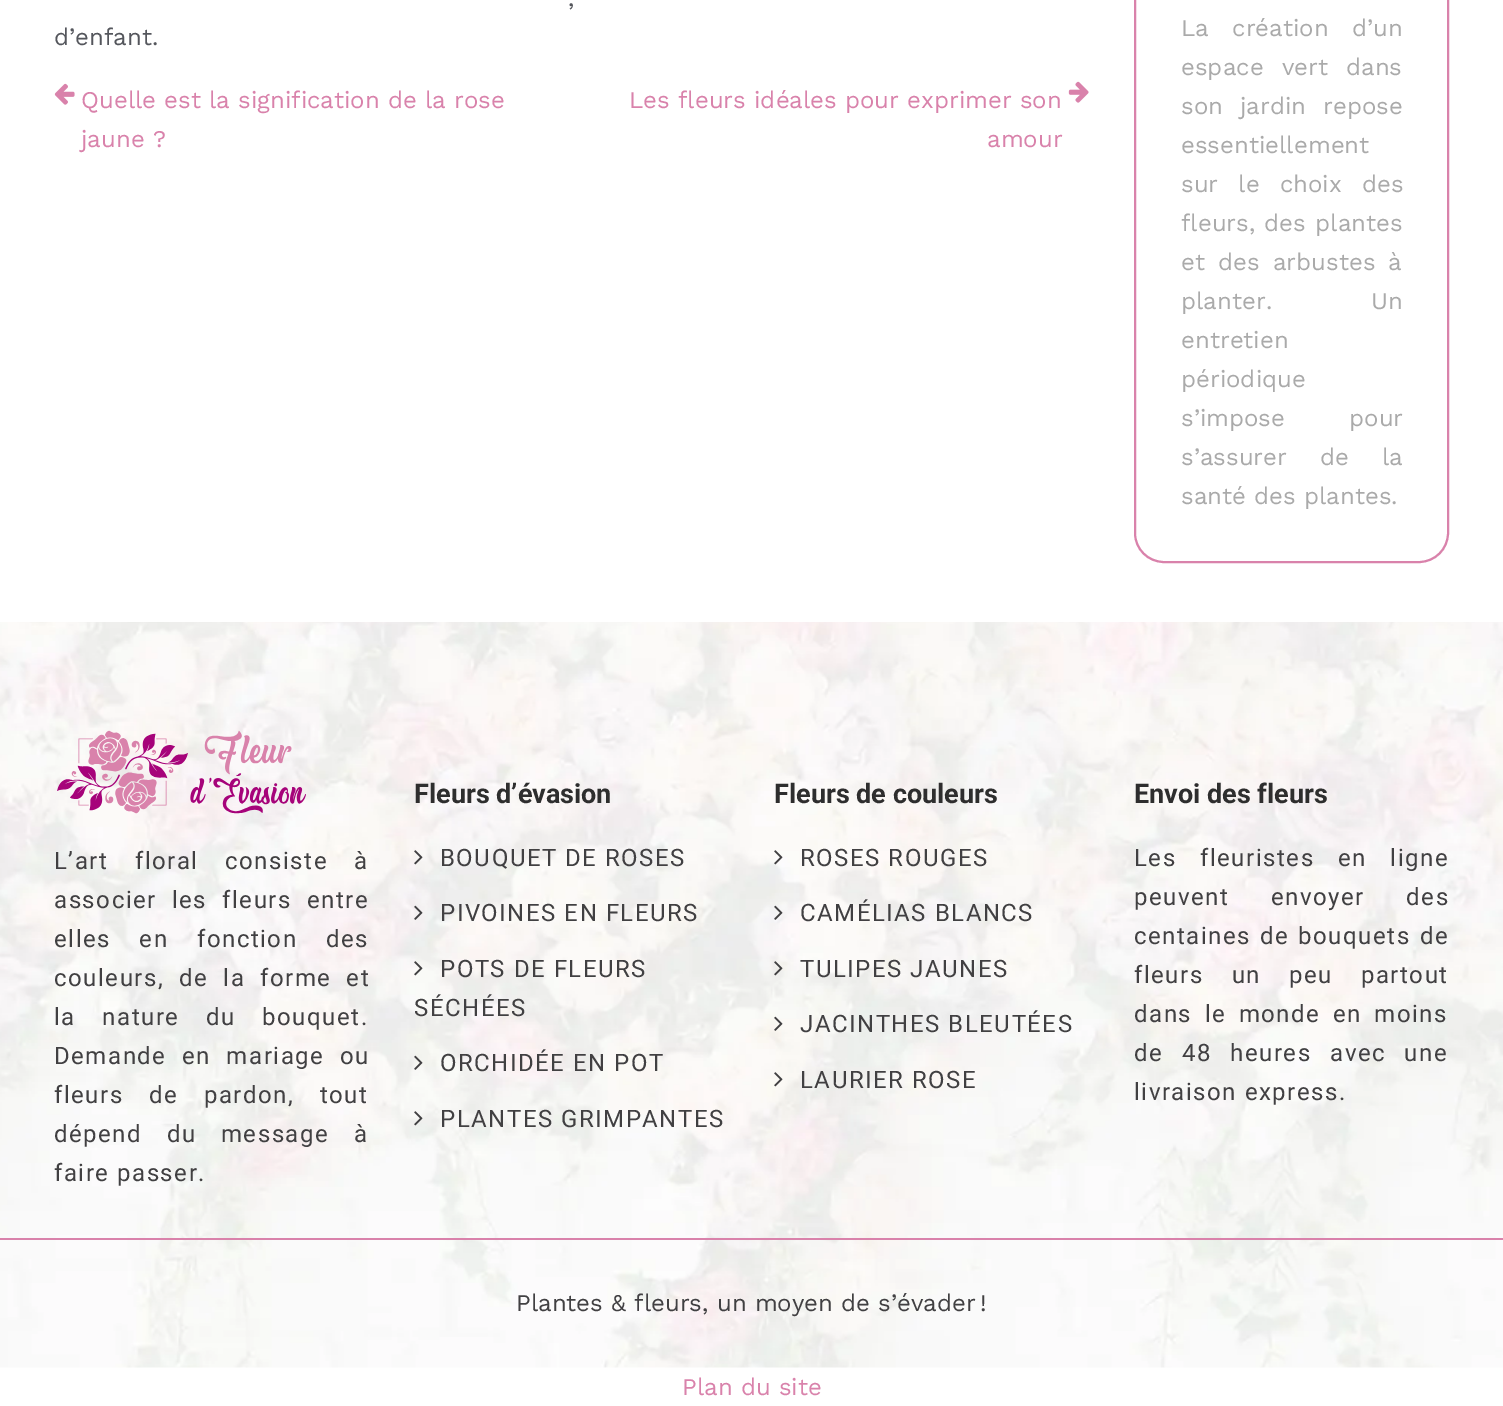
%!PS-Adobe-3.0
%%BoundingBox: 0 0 1503 1406
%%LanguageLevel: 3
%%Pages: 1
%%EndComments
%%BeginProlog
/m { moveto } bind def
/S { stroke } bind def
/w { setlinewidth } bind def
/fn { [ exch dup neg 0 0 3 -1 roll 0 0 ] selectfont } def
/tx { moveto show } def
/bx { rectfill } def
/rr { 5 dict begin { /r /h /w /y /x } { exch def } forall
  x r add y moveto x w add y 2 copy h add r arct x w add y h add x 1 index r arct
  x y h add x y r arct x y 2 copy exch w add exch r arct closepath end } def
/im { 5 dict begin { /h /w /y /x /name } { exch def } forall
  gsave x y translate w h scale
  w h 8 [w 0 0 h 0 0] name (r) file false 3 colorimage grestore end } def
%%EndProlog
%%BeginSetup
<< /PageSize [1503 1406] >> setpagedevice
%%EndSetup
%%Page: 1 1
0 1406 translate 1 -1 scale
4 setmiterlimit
1 setgray
0 0 1503 1406 bx
/WorkSans-Regular 24 fn
0.329 0.337 0.361 setrgbcolor
568 6 m 3 0 32 (,) widthshow
(d’enfant.) 54 45 tx
(image0.raw) 54 83 21 22 im
0.851 0.51 0.671 setrgbcolor
(Quelle est la signification de la rose) 81 108 tx
(jaune ?) 81 147 tx
(Les fleurs idéales pour exprimer son) 629 108 tx
(image1.raw) 1068 81 21 22 im
(amour) 987 147 tx
2 w
1135 -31 313 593 29 rr S
0.667 setgray
1181 36 m 15 0 32 (La création d’un) widthshow
1181 75 m 10 0 32 (espace vert dans) widthshow
1181 114 m 9 0 32 (son jardin repose) widthshow
(essentiellement) 1181 153 tx
1181 192 m 12 0 32 (sur le choix des) widthshow
1181 231 m 1 0 32 (fleurs, des plantes) widthshow
1181 270 m 5 0 32 (et des arbustes à) widthshow
1181 309 m 91 0 32 (planter. Un) widthshow
(entretien) 1181 348 tx
(périodique) 1181 387 tx
1181 426 m 56 0 32 (s’impose pour) widthshow
1181 465 m 25 0 32 (s’assurer de la) widthshow
(santé des plantes.) 1181 504 tx
(image2.raw) 0 622 1503 746 im
(image3.raw) 57 730 249 84 im
/Roboto-Regular 24 fn
0.255 0.251 0.259 setrgbcolor
54 869 m 19 0 32 1.5 0 (L’art floral consiste à) awidthshow
54 908 m 7.5 0 32 1.5 0 (associer les fleurs entre) awidthshow
54 947 m 21 0 32 1.5 0 (elles en fonction des) awidthshow
54 986 m 7.5 0 32 1.5 0 (couleurs, de la forme et) awidthshow
54 1025 m 19 0 32 1.5 0 (la nature du bouquet.) awidthshow
54 1064 m 8 0 32 1.5 0 (Demande en mariage ou) awidthshow
54 1103 m 18 0 32 1.5 0 (fleurs de pardon, tout) awidthshow
54 1142 m 17 0 32 1.5 0 (dépend du message à) awidthshow
54 1181 m 1.5 0 (faire passer.) ashow
/Roboto-Bold 27 fn
0.18 setgray
(Fleurs d’évasion) 414 803 tx
(image4.raw) 414 850 9 15 im
/Roboto-Regular 24 fn
0.255 0.251 0.259 setrgbcolor
440 866 m 1.5 0 (BOUQUET DE ROSES) ashow
(image5.raw) 414 905 9 15 im
440 921 m 1.5 0 (PIVOINES EN FLEURS) ashow
(image6.raw) 414 961 9 15 im
440 977 m 1.5 0 (POTS DE FLEURS) ashow
414 1016 m 1.5 0 (SÉCHÉES) ashow
(image7.raw) 414 1055 9 15 im
440 1071 m 1.5 0 (ORCHIDÉE EN POT) ashow
(image8.raw) 414 1111 9 15 im
440 1127 m 1.5 0 (PLANTES GRIMPANTES) ashow
/Roboto-Bold 27 fn
0.18 setgray
(Fleurs de couleurs) 774 803 tx
(image9.raw) 774 850 9 15 im
/Roboto-Regular 24 fn
0.255 0.251 0.259 setrgbcolor
800 866 m 1.5 0 (ROSES ROUGES) ashow
(image10.raw) 774 905 9 15 im
800 921 m 1.5 0 (CAMÉLIAS BLANCS) ashow
(image11.raw) 774 961 9 15 im
800 977 m 1.5 0 (TULIPES JAUNES) ashow
(image12.raw) 774 1016 9 15 im
800 1032 m 1.5 0 (JACINTHES BLEUTÉES) ashow
(image13.raw) 774 1072 9 15 im
800 1088 m 1.5 0 (LAURIER ROSE) ashow
/Roboto-Bold 27 fn
0.18 setgray
(Envoi des fleurs) 1134 803 tx
/Roboto-Regular 24 fn
0.255 0.251 0.259 setrgbcolor
1134 866 m 16 0 32 1.5 0 (Les fleuristes en ligne) awidthshow
1134 905 m 34 0 32 1.5 0 (peuvent envoyer des) awidthshow
1134 944 m 1.5 0 32 1.5 0 (centaines de bouquets de) awidthshow
1134 983 m 20.5 0 32 1.5 0 (fleurs un peu partout) awidthshow
1134 1022 m 5 0 32 1.5 0 (dans le monde en moins) awidthshow
1134 1061 m 11 0 32 1.5 0 (de 48 heures avec une) awidthshow
1134 1100 m 1.5 0 (livraison express.) ashow
0.851 0.51 0.671 setrgbcolor
0 1238 1503 2 bx
/WorkSans-Regular 24 fn
0.255 0.251 0.259 setrgbcolor
(Plantes & fleurs, un moyen de s’évader !) 516 1311 tx
0.851 0.51 0.671 setrgbcolor
(Plan du site) 682 1395 tx
showpage
%%EOF
